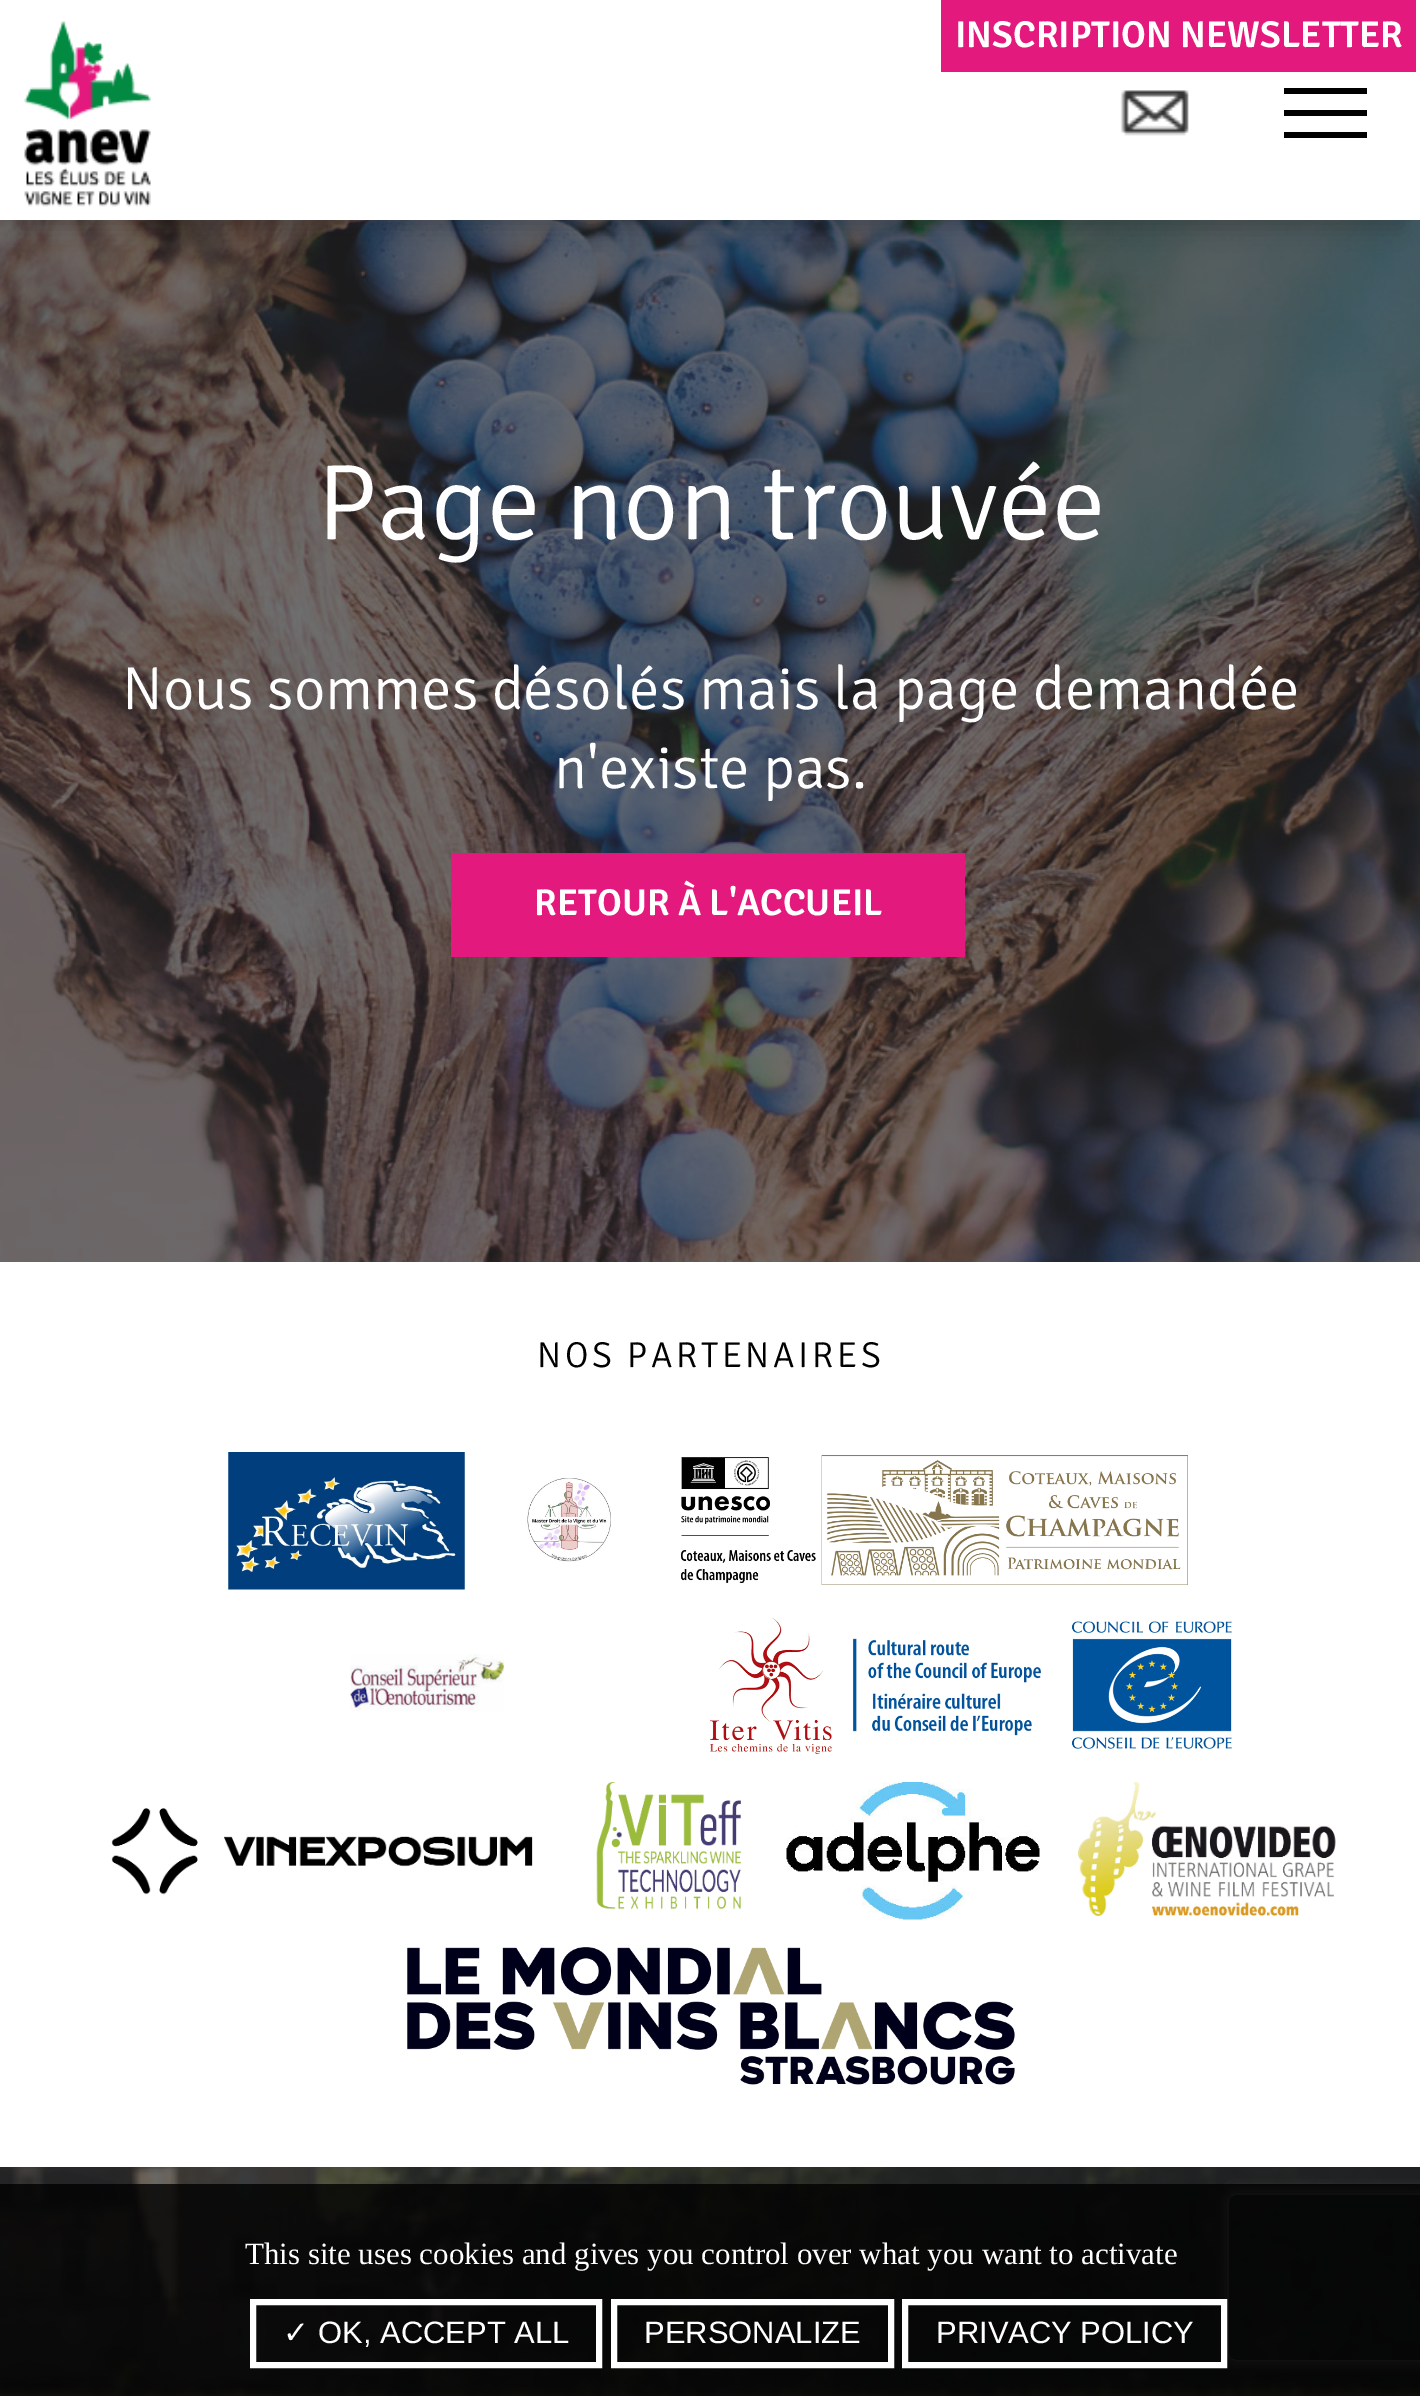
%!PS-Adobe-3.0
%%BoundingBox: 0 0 1420 2396
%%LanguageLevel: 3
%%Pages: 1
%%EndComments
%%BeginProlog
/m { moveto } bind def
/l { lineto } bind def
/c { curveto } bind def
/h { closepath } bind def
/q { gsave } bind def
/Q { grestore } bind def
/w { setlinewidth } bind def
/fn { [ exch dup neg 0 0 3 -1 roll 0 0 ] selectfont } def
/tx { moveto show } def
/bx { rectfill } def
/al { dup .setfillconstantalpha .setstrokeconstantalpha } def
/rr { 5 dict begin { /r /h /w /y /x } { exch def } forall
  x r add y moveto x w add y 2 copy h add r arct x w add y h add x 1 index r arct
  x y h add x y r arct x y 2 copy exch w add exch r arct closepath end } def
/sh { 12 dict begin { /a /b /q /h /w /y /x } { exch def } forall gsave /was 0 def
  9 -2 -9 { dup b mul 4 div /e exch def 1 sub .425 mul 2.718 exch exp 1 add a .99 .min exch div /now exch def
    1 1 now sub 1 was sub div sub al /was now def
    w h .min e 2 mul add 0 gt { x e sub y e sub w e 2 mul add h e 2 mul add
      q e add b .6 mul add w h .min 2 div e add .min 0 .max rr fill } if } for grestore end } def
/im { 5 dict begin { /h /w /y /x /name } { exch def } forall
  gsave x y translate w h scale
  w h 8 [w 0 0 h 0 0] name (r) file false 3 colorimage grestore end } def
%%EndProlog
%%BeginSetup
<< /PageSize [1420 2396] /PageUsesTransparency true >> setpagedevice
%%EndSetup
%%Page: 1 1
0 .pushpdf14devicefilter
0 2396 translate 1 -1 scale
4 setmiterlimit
0.161 0.161 0.169 setrgbcolor
0 0 1420 2396 bx
(image2.raw) 0 220 1420 1042 im
0 setgray
19 47 1384 181 0 11 0.2 sh
1 setgray
0 0 1420 220 bx
(image0.raw) 24 20 127 187 im
(image1.raw) 1120 90 69 46 im
0 setgray
1284 110 83 6 bx
1284 88 83 6 bx
1284 132 83 6 bx
0.894 0.098 0.49 setrgbcolor
941 0 475 72 bx
/Signika-SemiBold 37.4 fn
1 setgray
(INSCRIPTION NEWSLETTER) 955 47 tx
/Signika-Light 107.5 fn
(Page non trouvée) 317 539 tx
/Signika-Light 60.75 fn
(Nous sommes désolés mais la page demandée) 122 709 tx
(n'existe pas.) 554 788 tx
0.894 0.098 0.49 setrgbcolor
451 853 514 104 bx
/Signika-SemiBold 37.4 fn
1 setgray
(RETOUR À L'ACCUEIL) 534 915 tx
0 1262 1420 905 bx
/Signika-Light 36 fn
0 setgray
537 1367 m 3.6 0 (NOS PARTENAIRES) ashow
(image3.raw) 228 1452 237 138 im
(image4.raw) 527 1478 84 84 im
(image5.raw) 681 1455 507 130 im
(image6.raw) 350 1654 154 57 im
(image7.raw) 710 1617 522 137 im
(image8.raw) 111 1808 422 87 im
(image9.raw) 596 1782 145 128 im
(image10.raw) 786 1782 254 138 im
(image11.raw) 1078 1782 258 134 im
(image12.raw) 407 1947 608 138 im
(image13.raw) 0 2167 1420 229 im
q
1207 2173 m 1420 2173 l 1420 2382 l 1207 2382 l h 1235 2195 m 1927 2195 l 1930.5 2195 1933 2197.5 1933 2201 c 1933 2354 l 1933 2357.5 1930.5 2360 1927 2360 c 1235 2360 l 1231.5 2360 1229 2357.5 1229 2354 c 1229 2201 l 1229 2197.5 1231.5 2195 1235 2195 c h eoclip newpath
0.502 setgray
1229 2195 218 165 6 7 1 sh
Q
0.8 al
0 2184 1420 212 bx
/LiberationSerif-Regular 30.95 fn
1 al
1 setgray
(This site uses cookies and gives you control over what you want to activate) 245 2264 tx
6 w
253 2302 346 63 rectstroke
/DejaVuSans-Regular 30.95 fn
(✓) 283 2343 tx
/LiberationSans-Regular 30.95 fn
(OK, ACCEPT ALL) 318 2343 tx
614 2302 277 63 rectstroke
(PERSONALIZE) 644 2343 tx
905 2302 319 63 rectstroke
(PRIVACY POLICY) 936 2343 tx
.poppdf14devicefilter showpage
%%EOF
